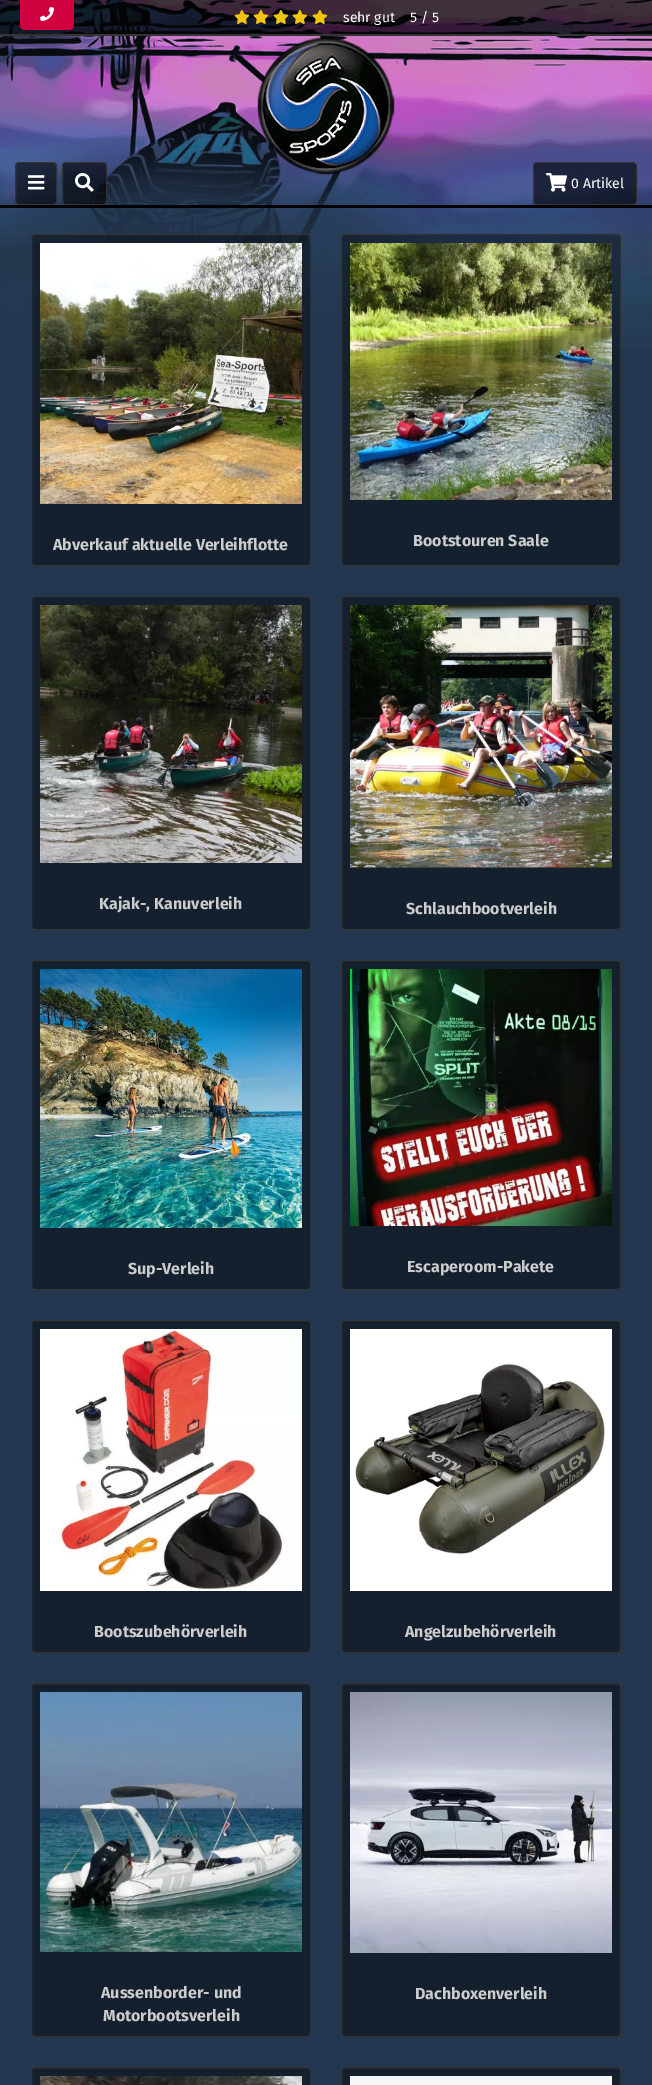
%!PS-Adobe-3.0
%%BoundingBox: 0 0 652 2085
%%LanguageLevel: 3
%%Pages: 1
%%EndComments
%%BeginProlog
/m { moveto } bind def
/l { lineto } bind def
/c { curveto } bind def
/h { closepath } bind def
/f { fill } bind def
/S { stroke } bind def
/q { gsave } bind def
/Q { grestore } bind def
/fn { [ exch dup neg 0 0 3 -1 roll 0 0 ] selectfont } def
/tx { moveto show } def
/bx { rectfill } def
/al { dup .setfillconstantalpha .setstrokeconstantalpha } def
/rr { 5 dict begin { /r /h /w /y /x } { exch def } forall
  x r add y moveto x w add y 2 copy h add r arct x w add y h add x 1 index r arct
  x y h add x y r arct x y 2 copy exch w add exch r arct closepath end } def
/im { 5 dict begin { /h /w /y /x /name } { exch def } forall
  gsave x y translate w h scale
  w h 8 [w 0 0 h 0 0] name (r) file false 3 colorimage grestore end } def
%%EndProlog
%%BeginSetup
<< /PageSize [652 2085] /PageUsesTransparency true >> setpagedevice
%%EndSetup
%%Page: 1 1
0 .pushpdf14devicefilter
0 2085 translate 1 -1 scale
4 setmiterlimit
0.137 0.212 0.31 setrgbcolor
0 0 652 2085 bx
(image0.raw) 0 0 652 349 im
0.7 al
0 setgray
0 0 652 34 bx
1 al
0.812 0.004 0.247 setrgbcolor
20 0 m 74 0 l 74 25 l 74 28 72 30 69 30 c 25 30 l 22 30 20 28 20 25 c h f
(image1.raw) 40 7 14 14 im
0.2 setgray
0 34 652 2 bx
(image2.raw) 234 10 16 14 im
(image3.raw) 253 10 16 14 im
(image4.raw) 273 10 16 14 im
(image5.raw) 292 10 16 14 im
(image6.raw) 312 10 16 14 im
/FiraSans-Regular 14 fn
1 setgray
(sehr gut) 343 22 tx
(5 / 5) 410 22 tx
(image7.raw) 257 37 138 138 im
0.6 al
0 setgray
15.5 162.5 41 42 3.5 rr f
1 al
0.2 setgray
15.5 162.5 41 42 3.5 rr S
(image8.raw) 28 175 17 15 im
0.6 al
0 setgray
62.5 162.5 44 42 3.5 rr f
1 al
0.2 setgray
62.5 162.5 44 42 3.5 rr S
(image9.raw) 75 173 19 19 im
0.6 al
0 setgray
533.5 162.5 103 42 3.5 rr f
1 al
0.2 setgray
533.5 162.5 103 42 3.5 rr S
(image10.raw) 546 173 21 19 im
1 setgray
(0 Artikel) 571 188 tx
0 setgray
0 205 652 3 bx
0.4 al
31.5 234.5 279 331 3.5 rr f
1 al
0.2 setgray
31.5 234.5 279 331 3.5 rr S
(image11.raw) 40 243 262 261 im
/FiraSans-Bold 16 fn
0.8 setgray
(Abverkauf aktuelle Verleihflotte) 53 550 tx
0.4 al
0 setgray
341.5 234.5 279 331 3.5 rr f
1 al
0.2 setgray
341.5 234.5 279 331 3.5 rr S
(image12.raw) 350 243 262 257 im
0.8 setgray
(Bootstouren Saale) 413 546 tx
0.082 0.125 0.184 setrgbcolor
31.5 596.5 279 333 3.5 rr q f Q
0.2 setgray
S
(image13.raw) 40 605 262 258 im
0.8 setgray
(Kajak-, Kanuverleih) 99 909 tx
0.082 0.125 0.184 setrgbcolor
341.5 596.5 279 333 3.5 rr q f Q
0.2 setgray
S
(image14.raw) 350 605 262 263 im
0.8 setgray
(Schlauchbootverleih) 406 914 tx
0.082 0.125 0.184 setrgbcolor
31.5 960.5 279 329 3.5 rr q f Q
0.2 setgray
S
(image15.raw) 40 969 262 259 im
0.8 setgray
(Sup-Verleih) 128 1274 tx
0.082 0.125 0.184 setrgbcolor
341.5 960.5 279 329 3.5 rr q f Q
0.2 setgray
S
(image16.raw) 350 969 262 257 im
0.8 setgray
(Escaperoom-Pakete) 407 1272 tx
0.082 0.125 0.184 setrgbcolor
31.5 1320.5 279 332 3.5 rr q f Q
0.2 setgray
S
(image17.raw) 40 1329 262 262 im
0.8 setgray
(Bootszubehörverleih) 94 1637 tx
0.082 0.125 0.184 setrgbcolor
341.5 1320.5 279 332 3.5 rr q f Q
0.2 setgray
S
(image18.raw) 350 1329 262 262 im
0.8 setgray
(Angelzubehörverleih) 405 1637 tx
0.082 0.125 0.184 setrgbcolor
31.5 1683.5 279 353 3.5 rr q f Q
0.2 setgray
S
(image19.raw) 40 1692 262 260 im
0.8 setgray
(Aussenborder- und) 101 1998 tx
(Motorbootsverleih) 103 2021 tx
0.082 0.125 0.184 setrgbcolor
341.5 1683.5 279 353 3.5 rr q f Q
0.2 setgray
S
(image20.raw) 350 1692 262 261 im
0.8 setgray
(Dachboxenverleih) 415 1999 tx
0.082 0.125 0.184 setrgbcolor
31.5 2067.5 279 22 3.5 rr q f Q
0.2 setgray
S
(image21.raw) 40 2076 262 9 im
0.082 0.125 0.184 setrgbcolor
341.5 2067.5 279 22 3.5 rr q f Q
0.2 setgray
S
0.965 setgray
350 2076 262 9 bx
.poppdf14devicefilter showpage
%%EOF
